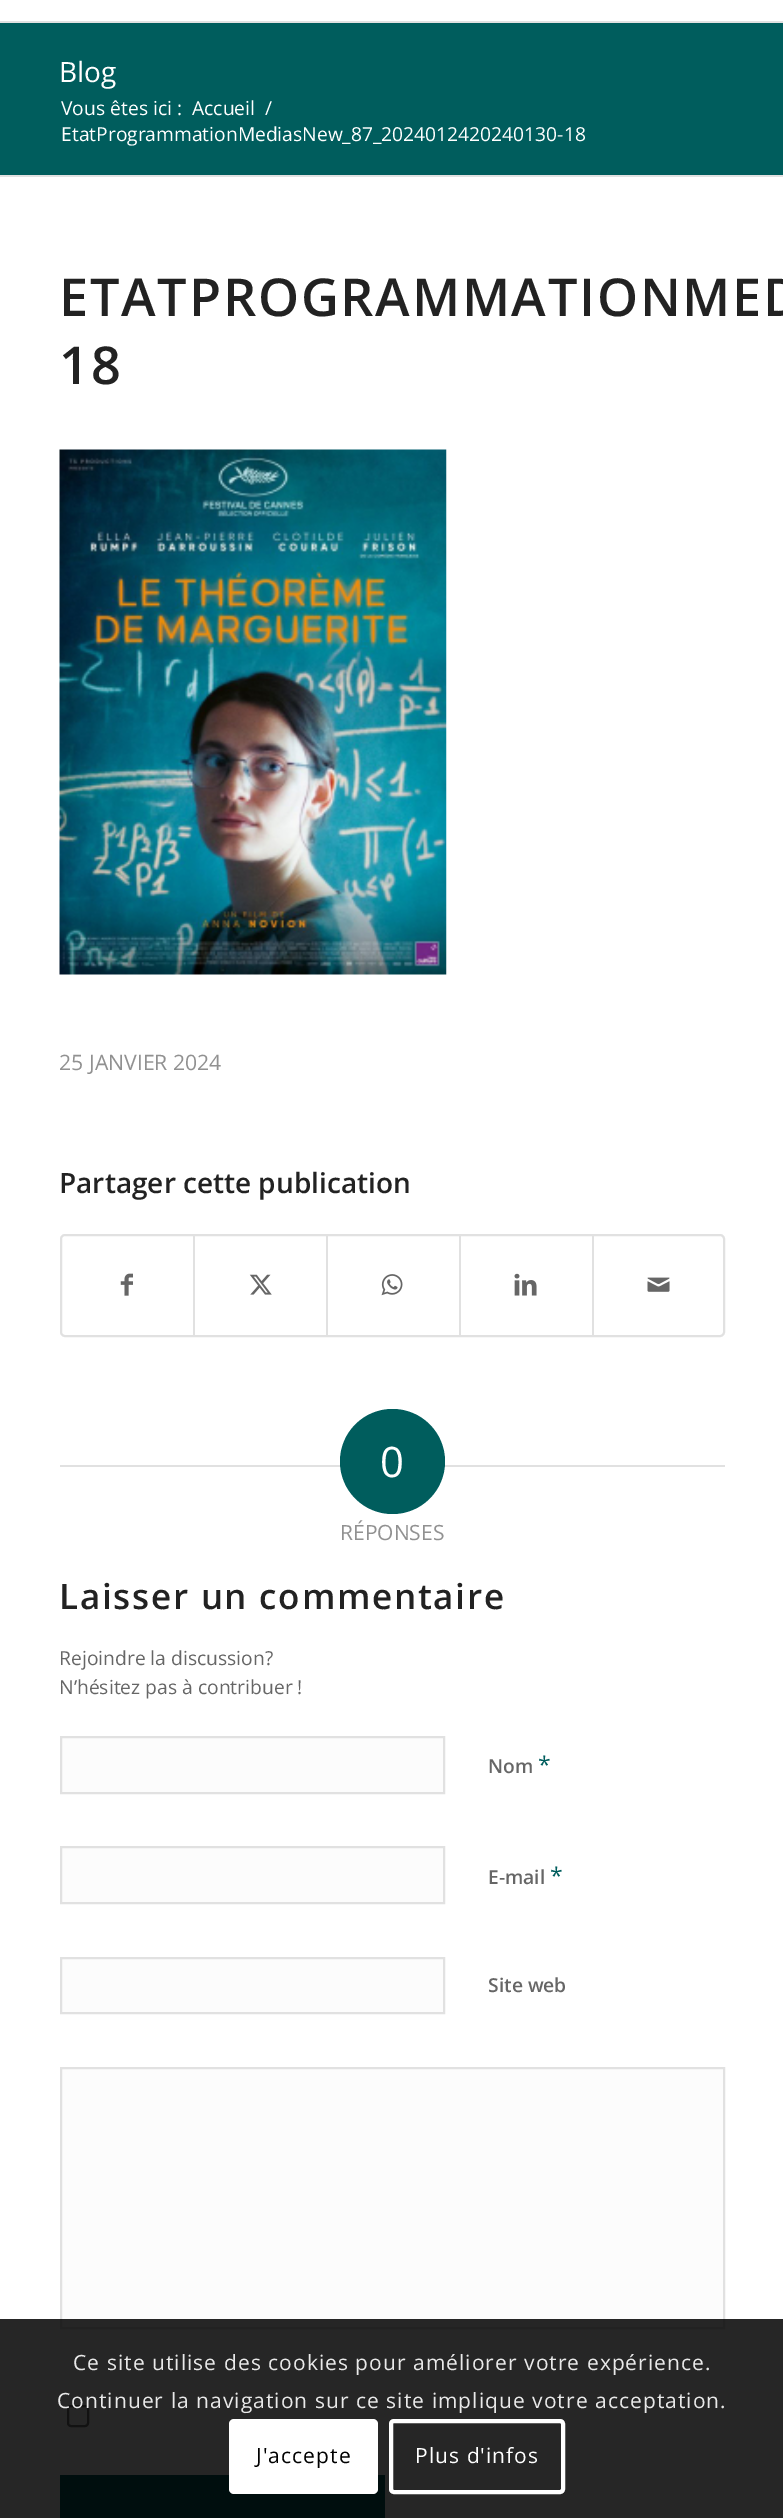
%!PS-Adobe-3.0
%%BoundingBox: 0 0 783 2518
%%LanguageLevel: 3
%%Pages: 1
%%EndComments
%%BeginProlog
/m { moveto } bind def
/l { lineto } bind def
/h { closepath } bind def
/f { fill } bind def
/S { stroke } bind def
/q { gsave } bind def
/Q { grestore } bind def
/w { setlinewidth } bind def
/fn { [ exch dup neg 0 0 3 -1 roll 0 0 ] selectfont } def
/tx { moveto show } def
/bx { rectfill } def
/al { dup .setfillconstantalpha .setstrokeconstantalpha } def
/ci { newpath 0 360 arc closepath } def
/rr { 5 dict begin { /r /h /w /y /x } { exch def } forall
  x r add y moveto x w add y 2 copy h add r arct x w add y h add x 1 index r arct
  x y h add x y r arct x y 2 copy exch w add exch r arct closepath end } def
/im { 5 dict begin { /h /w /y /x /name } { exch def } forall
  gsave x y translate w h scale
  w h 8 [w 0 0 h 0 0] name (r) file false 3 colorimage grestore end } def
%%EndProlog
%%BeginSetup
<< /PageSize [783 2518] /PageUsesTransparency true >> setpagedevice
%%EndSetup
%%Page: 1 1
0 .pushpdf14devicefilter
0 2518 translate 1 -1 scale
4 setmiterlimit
1 setgray
0 0 783 2518 bx
0.882 setgray
0 21 783 2 bx
0 0.365 0.365 setrgbcolor
0 23 783 152 bx
/OpenSans-Regular 28 fn
1 setgray
(Blog) 59 82 tx
/OpenSans-Regular 19.25 fn
(Vous êtes ici :) 61 115 tx
(Accueil) 192 115 tx
(/) 265 115 tx
(EtatProgrammationMediasNew_87_2024012420240130-18) 61 141 tx
0.882 setgray
0 175 783 2 bx
/OpenSans-SemiBold 52.25 fn
0.133 setgray
59 316 m 1.75 0 (ETATPROGRAMMATIONMED) ashow
59 384 m 1.75 0 (18) ashow
(image0.raw) 59 449 388 526 im
/OpenSans-Regular 21.25 fn
0.569 setgray
(25 JANVIER 2024) 59 1070 tx
/OpenSans-SemiBold 28 fn
0.133 setgray
(Partager cette publication) 59 1193 tx
0.882 setgray
2 w
61 1235 663 101 4 rr S
(image1.raw) 120 1273 13 23 im
193 1236 2 99 bx
(image2.raw) 249 1274 23 21 im
326 1236 2 99 bx
(image3.raw) 381 1274 22 22 im
459 1236 2 99 bx
(image4.raw) 514 1273 23 23 im
592 1236 2 99 bx
(image5.raw) 647 1277 23 15 im
60 1465 280 2 bx
0 0.365 0.365 setrgbcolor
392.5 1461.5 52.5 ci f
/OpenSans-Regular 42 fn
1 setgray
(0) 380 1477 tx
0.882 setgray
445 1465 280 2 bx
/OpenSans-Regular 21 fn
0.569 setgray
(RÉPONSES) 340 1540 tx
/OpenSans-SemiBold 35 fn
0.133 setgray
59 1609 m 1.75 0 (Laisser un commentaire) ashow
/OpenSans-Regular 19.3 fn
0.4 setgray
(Rejoindre la discussion?) 59 1665 tx
(N’hésitez pas à contribuer !) 59 1694 tx
0.988 setgray
61 1737 m 444 1737 l 444 1793 l 61 1793 l h q f Q
0.882 setgray
S
/OpenSans-SemiBold 19.25 fn
0.4 setgray
(Nom) 488 1773 tx
/OpenSans-Regular 23 fn
0 0.365 0.365 setrgbcolor
(*) 538 1773 tx
0.988 setgray
61 1847 m 444 1847 l 444 1903 l 61 1903 l h q f Q
0.882 setgray
S
/OpenSans-SemiBold 19.25 fn
0.4 setgray
(E-mail) 488 1884 tx
/OpenSans-Regular 23 fn
0 0.365 0.365 setrgbcolor
(*) 550 1884 tx
0.988 setgray
61 1958 m 444 1958 l 444 2013 l 61 2013 l h q f Q
0.882 setgray
S
/OpenSans-SemiBold 19.25 fn
0.4 setgray
(Site web) 488 1992 tx
0.988 setgray
61 2068 m 724 2068 l 724 2328 l 61 2328 l h q f Q
0.882 setgray
S
0.463 setgray
68 2406 20 20 3 rr S
0 0.365 0.365 setrgbcolor
60 2475 325 43 bx
0.85 al
0 setgray
0 2319 783 199 bx
/OpenSans-Regular 21 fn
1 al
0.914 setgray
73 2370 m 1.05 0 (Ce site utilise des cookies pour améliorer votre expérience.) ashow
57 2408 m 1.05 0 (Continuer la navigation sur ce site implique votre acceptation.) ashow
1 setgray
229 2419 149 75 5 rr f
0 setgray
256 2463 m 1.05 0 (J'accepte) ashow
1 setgray
4 w
391 2421 172 71 3 rr S
415 2463 m 1.05 0 (Plus d'infos) ashow
.poppdf14devicefilter showpage
%%EOF
